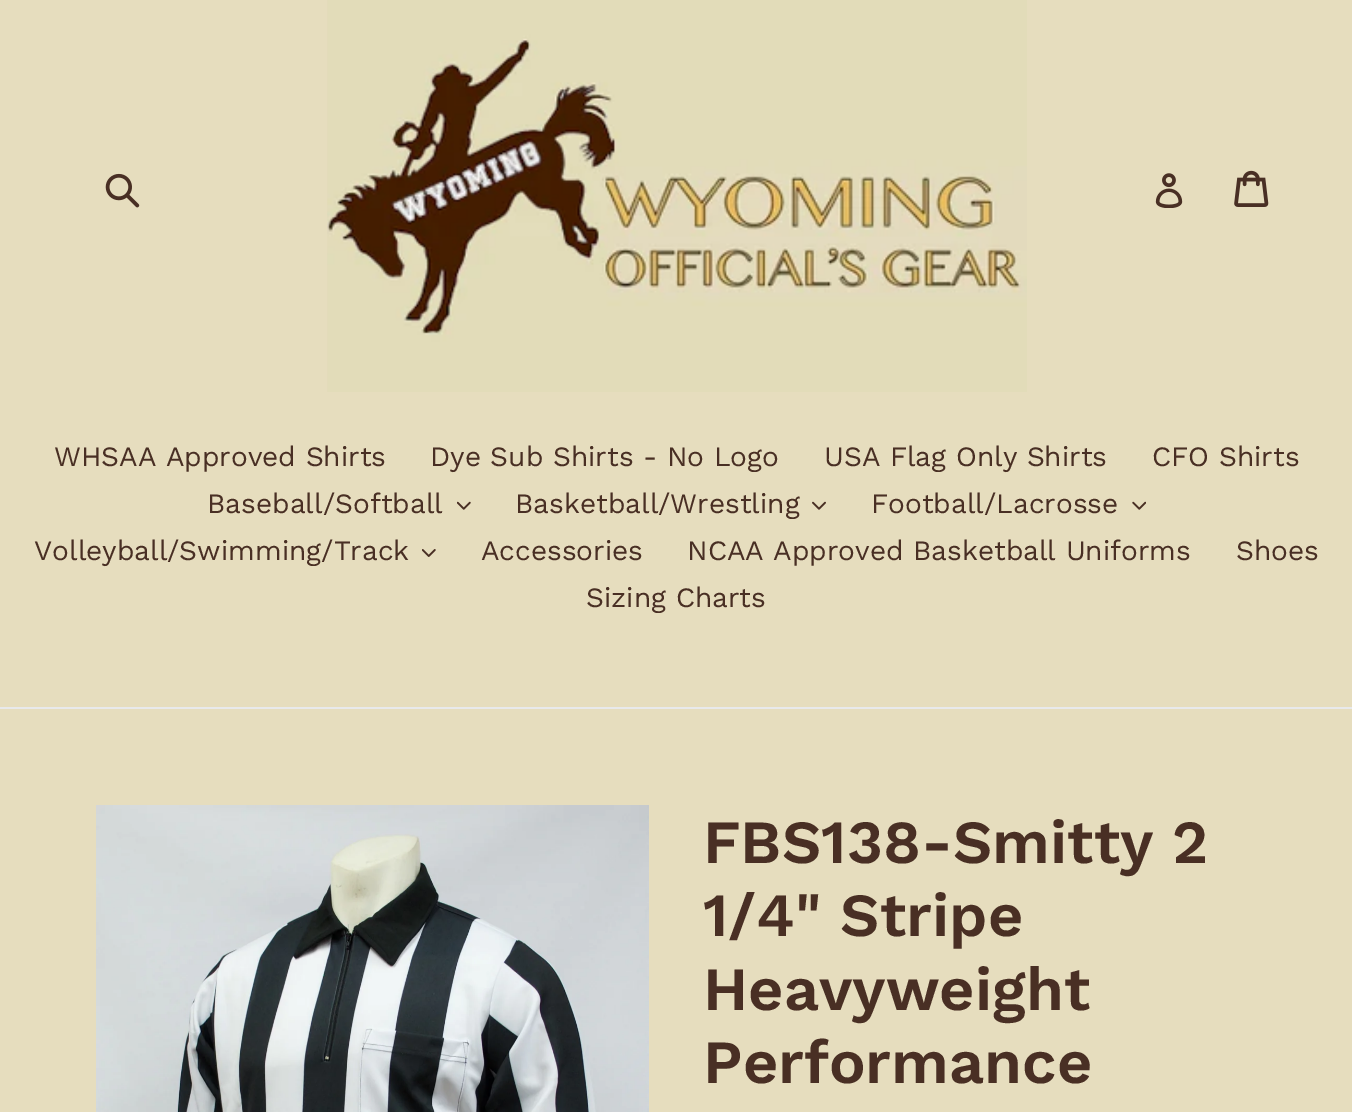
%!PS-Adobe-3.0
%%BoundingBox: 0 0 1352 1112
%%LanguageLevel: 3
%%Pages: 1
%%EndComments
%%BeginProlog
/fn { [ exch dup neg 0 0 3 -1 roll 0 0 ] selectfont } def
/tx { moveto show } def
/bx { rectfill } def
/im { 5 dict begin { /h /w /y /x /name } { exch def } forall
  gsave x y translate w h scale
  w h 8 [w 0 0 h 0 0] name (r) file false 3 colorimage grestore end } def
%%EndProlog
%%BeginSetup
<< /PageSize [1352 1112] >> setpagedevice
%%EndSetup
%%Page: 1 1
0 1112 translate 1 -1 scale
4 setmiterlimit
0.902 0.867 0.745 setrgbcolor
0 0 1352 1112 bx
(image0.raw) 105 173 35 35 im
(image1.raw) 327 0 700 392 im
(image2.raw) 1155 173 28 35 im
(image3.raw) 1234 170 35 37 im
0.91 0.914 0.922 setrgbcolor
0 707 1352 2 bx
/WorkSans-Regular 28 fn
0.286 0.184 0.141 setrgbcolor
(WHSAA Approved Shirts) 54 466 tx
(Dye Sub Shirts - No Logo) 430 466 tx
(USA Flag Only Shirts) 824 466 tx
(CFO Shirts) 1152 466 tx
(Baseball/Softball) 207 513 tx
(image4.raw) 457 501 14 9 im
(Basketball/Wrestling) 515 513 tx
(image5.raw) 812 501 14 9 im
(Football/Lacrosse) 871 513 tx
(image6.raw) 1132 501 14 9 im
(Volleyball/Swimming/Track) 34 560 tx
(image7.raw) 422 549 14 8 im
(Accessories) 481 560 tx
(NCAA Approved Basketball Uniforms) 687 560 tx
(Shoes) 1236 560 tx
(Sizing Charts) 586 607 tx
(image8.raw) 96 805 553 307 im
/WorkSans-SemiBold 61.25 fn
(FBS138-Smitty 2) 703 863 tx
(1/4" Stripe) 703 936 tx
(Heavyweight) 703 1010 tx
(Performance) 703 1083 tx
showpage
%%EOF
